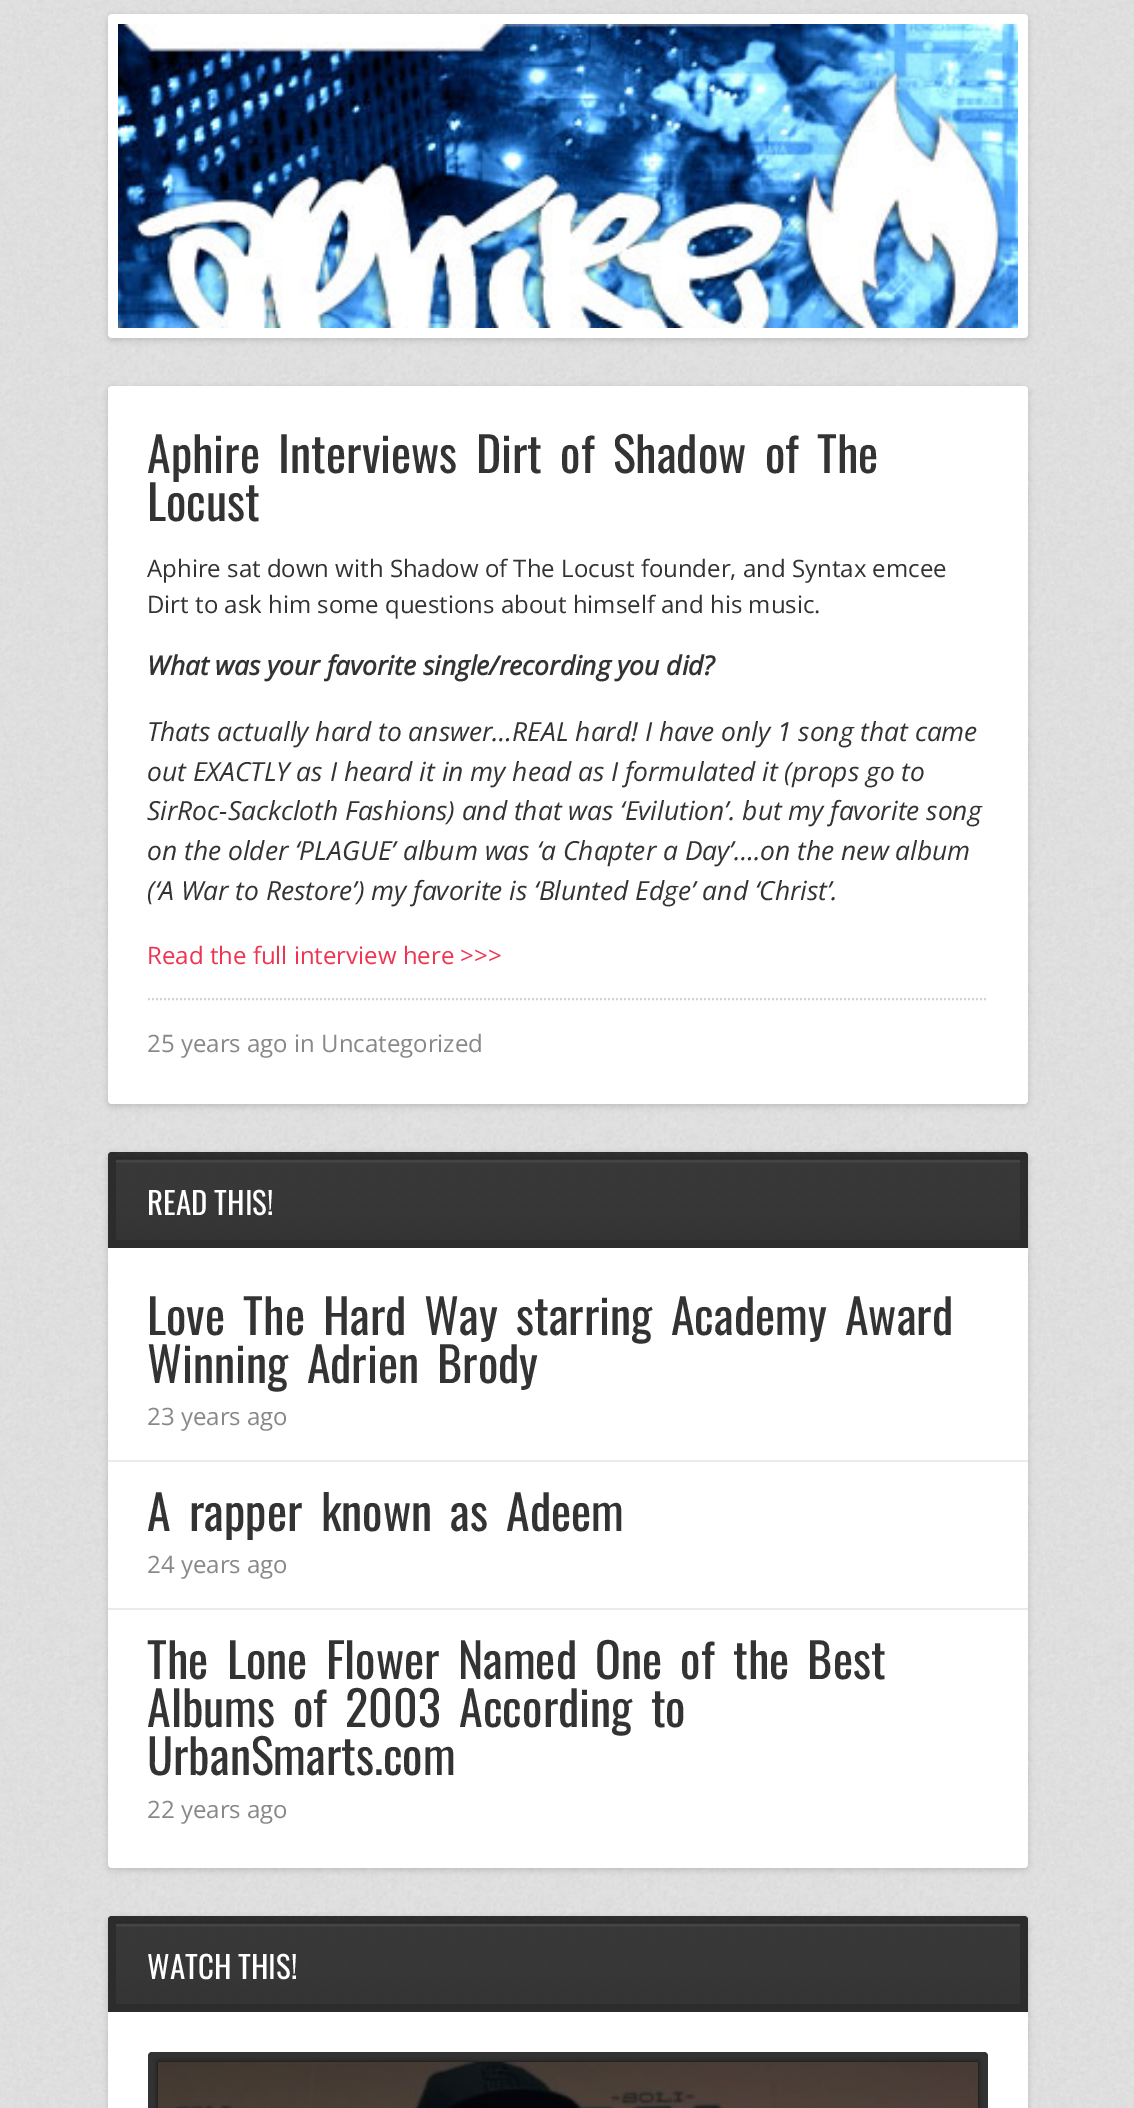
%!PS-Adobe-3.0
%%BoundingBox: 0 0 1134 2108
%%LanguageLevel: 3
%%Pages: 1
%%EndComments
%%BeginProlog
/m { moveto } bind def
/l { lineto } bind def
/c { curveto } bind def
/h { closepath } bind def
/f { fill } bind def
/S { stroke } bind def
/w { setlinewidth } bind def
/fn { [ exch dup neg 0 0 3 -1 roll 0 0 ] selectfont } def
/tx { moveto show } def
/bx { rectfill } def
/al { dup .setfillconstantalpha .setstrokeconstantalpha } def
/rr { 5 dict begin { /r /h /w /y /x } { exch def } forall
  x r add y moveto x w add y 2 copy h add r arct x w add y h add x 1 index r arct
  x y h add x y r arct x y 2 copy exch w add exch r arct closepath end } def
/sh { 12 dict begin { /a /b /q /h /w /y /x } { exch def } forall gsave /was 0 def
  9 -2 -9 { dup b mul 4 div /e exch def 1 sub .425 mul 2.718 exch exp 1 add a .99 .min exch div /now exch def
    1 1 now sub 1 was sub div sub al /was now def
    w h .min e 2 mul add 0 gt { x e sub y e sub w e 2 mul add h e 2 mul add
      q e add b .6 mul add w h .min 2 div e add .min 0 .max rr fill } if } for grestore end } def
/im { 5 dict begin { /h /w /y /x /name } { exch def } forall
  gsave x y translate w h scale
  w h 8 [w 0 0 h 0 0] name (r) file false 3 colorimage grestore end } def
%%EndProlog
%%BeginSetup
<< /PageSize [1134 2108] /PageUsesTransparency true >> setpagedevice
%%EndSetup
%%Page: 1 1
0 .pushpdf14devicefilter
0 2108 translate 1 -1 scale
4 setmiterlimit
1 setgray
0 0 1134 2108 bx
(image0.raw) 0 0 1134 2108 im
0 setgray
108 16 920 324 4 3 0.15 sh
1 setgray
108 14 920 324 4 rr f
(image1.raw) 118 24 900 304 im
0 setgray
108 388 920 718 4 3 0.15 sh
1 setgray
108 386 920 718 4 rr f
/Oswald-Regular 48 fn
0.2 setgray
147 473 m 7.25 0 32 (Aphire Interviews Dirt of Shadow of The) widthshow
(Locust) 147 521 tx
/OpenSans-Regular 24 fn
(Aphire sat down with Shadow of The Locust founder, and Syntax emcee) 147 577 tx
(Dirt to ask him some questions about himself and his music.) 147 613 tx
/OpenSans-BoldItalic 26.4 fn
(What was your favorite single/recording you did?) 147 675 tx
/OpenSans-Italic 26.4 fn
(Thats actually hard to answer…REAL hard! I have only 1 song that came) 147 741 tx
(out EXACTLY as I heard it in my head as I formulated it \(props go to) 147 781 tx
(SirRoc-Sackcloth Fashions\) and that was ‘Evilution’. but my favorite song) 147 820 tx
(on the older ‘PLAGUE’ album was ‘a Chapter a Day’….on the new album) 147 860 tx
(\(‘A War to Restore’\) my favorite is ‘Blunted Edge’ and ‘Christ’.) 147 900 tx
/OpenSans-Regular 24 fn
0.933 0.204 0.314 setrgbcolor
(Read the full interview here >>>) 147 964 tx
0.824 setgray
2 w
[2 2] 0 setdash
148 999 m 988 999 l S
0.533 setgray
(25 years ago in Uncategorized) 147 1052 tx
0 setgray
108 1154 920 716 4 3 0.15 sh
1 setgray
108 1152 920 716 4 rr f
(image2.raw) 108 1152 920 88 im
0.173 setgray
1020 1152 m 1024 1152 l 1026 1152 1028 1154 1028 1156 c 1028 1248 l 1020 1248 l h f
108 1240 920 8 bx
112 1152 m 116 1152 l 116 1248 l 108 1248 l 108 1156 l 108 1154 110 1152 112 1152 c h f
/Oswald-Regular 31 fn
1 setgray
(READ THIS!) 147 1215 tx
0.922 setgray
108 1460 920 2 bx
/Oswald-Regular 48 fn
0.2 setgray
147 1335 m 7.25 0 32 (Love The Hard Way starring Academy Award) widthshow
147 1383 m 7.25 0 32 (Winning Adrien Brody) widthshow
/OpenSans-Regular 24 fn
0.533 setgray
(23 years ago) 147 1425 tx
0.922 setgray
108 1608 920 2 bx
/Oswald-Regular 48 fn
0.2 setgray
147 1531 m 7.25 0 32 (A rapper known as Adeem) widthshow
/OpenSans-Regular 24 fn
0.533 setgray
(24 years ago) 147 1573 tx
/Oswald-Regular 48 fn
0.2 setgray
147 1679 m 7.25 0 32 (The Lone Flower Named One of the Best) widthshow
147 1727 m 7.25 0 32 (Albums of 2003 According to) widthshow
(UrbanSmarts.com) 147 1775 tx
/OpenSans-Regular 24 fn
0.533 setgray
(22 years ago) 147 1818 tx
0 setgray
108 1918 920 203 4 3 0.15 sh
1 setgray
108 1916 920 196 4 rr f
(image3.raw) 108 1916 920 88 im
0.173 setgray
1020 1916 m 1024 1916 l 1026 1916 1028 1918 1028 1920 c 1028 2012 l 1020 2012 l h f
108 2004 920 8 bx
112 1916 m 116 1916 l 116 2012 l 108 2012 l 108 1920 l 108 1918 110 1916 112 1916 c h f
/Oswald-Regular 31 fn
1 setgray
(WATCH THIS!) 147 1979 tx
0.2 setgray
148 2052 840 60 4 rr f
0.055 setgray
158 2062 820 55 0 3 1 sh
(image4.raw) 158 2062 820 46 im
.poppdf14devicefilter showpage
%%EOF
